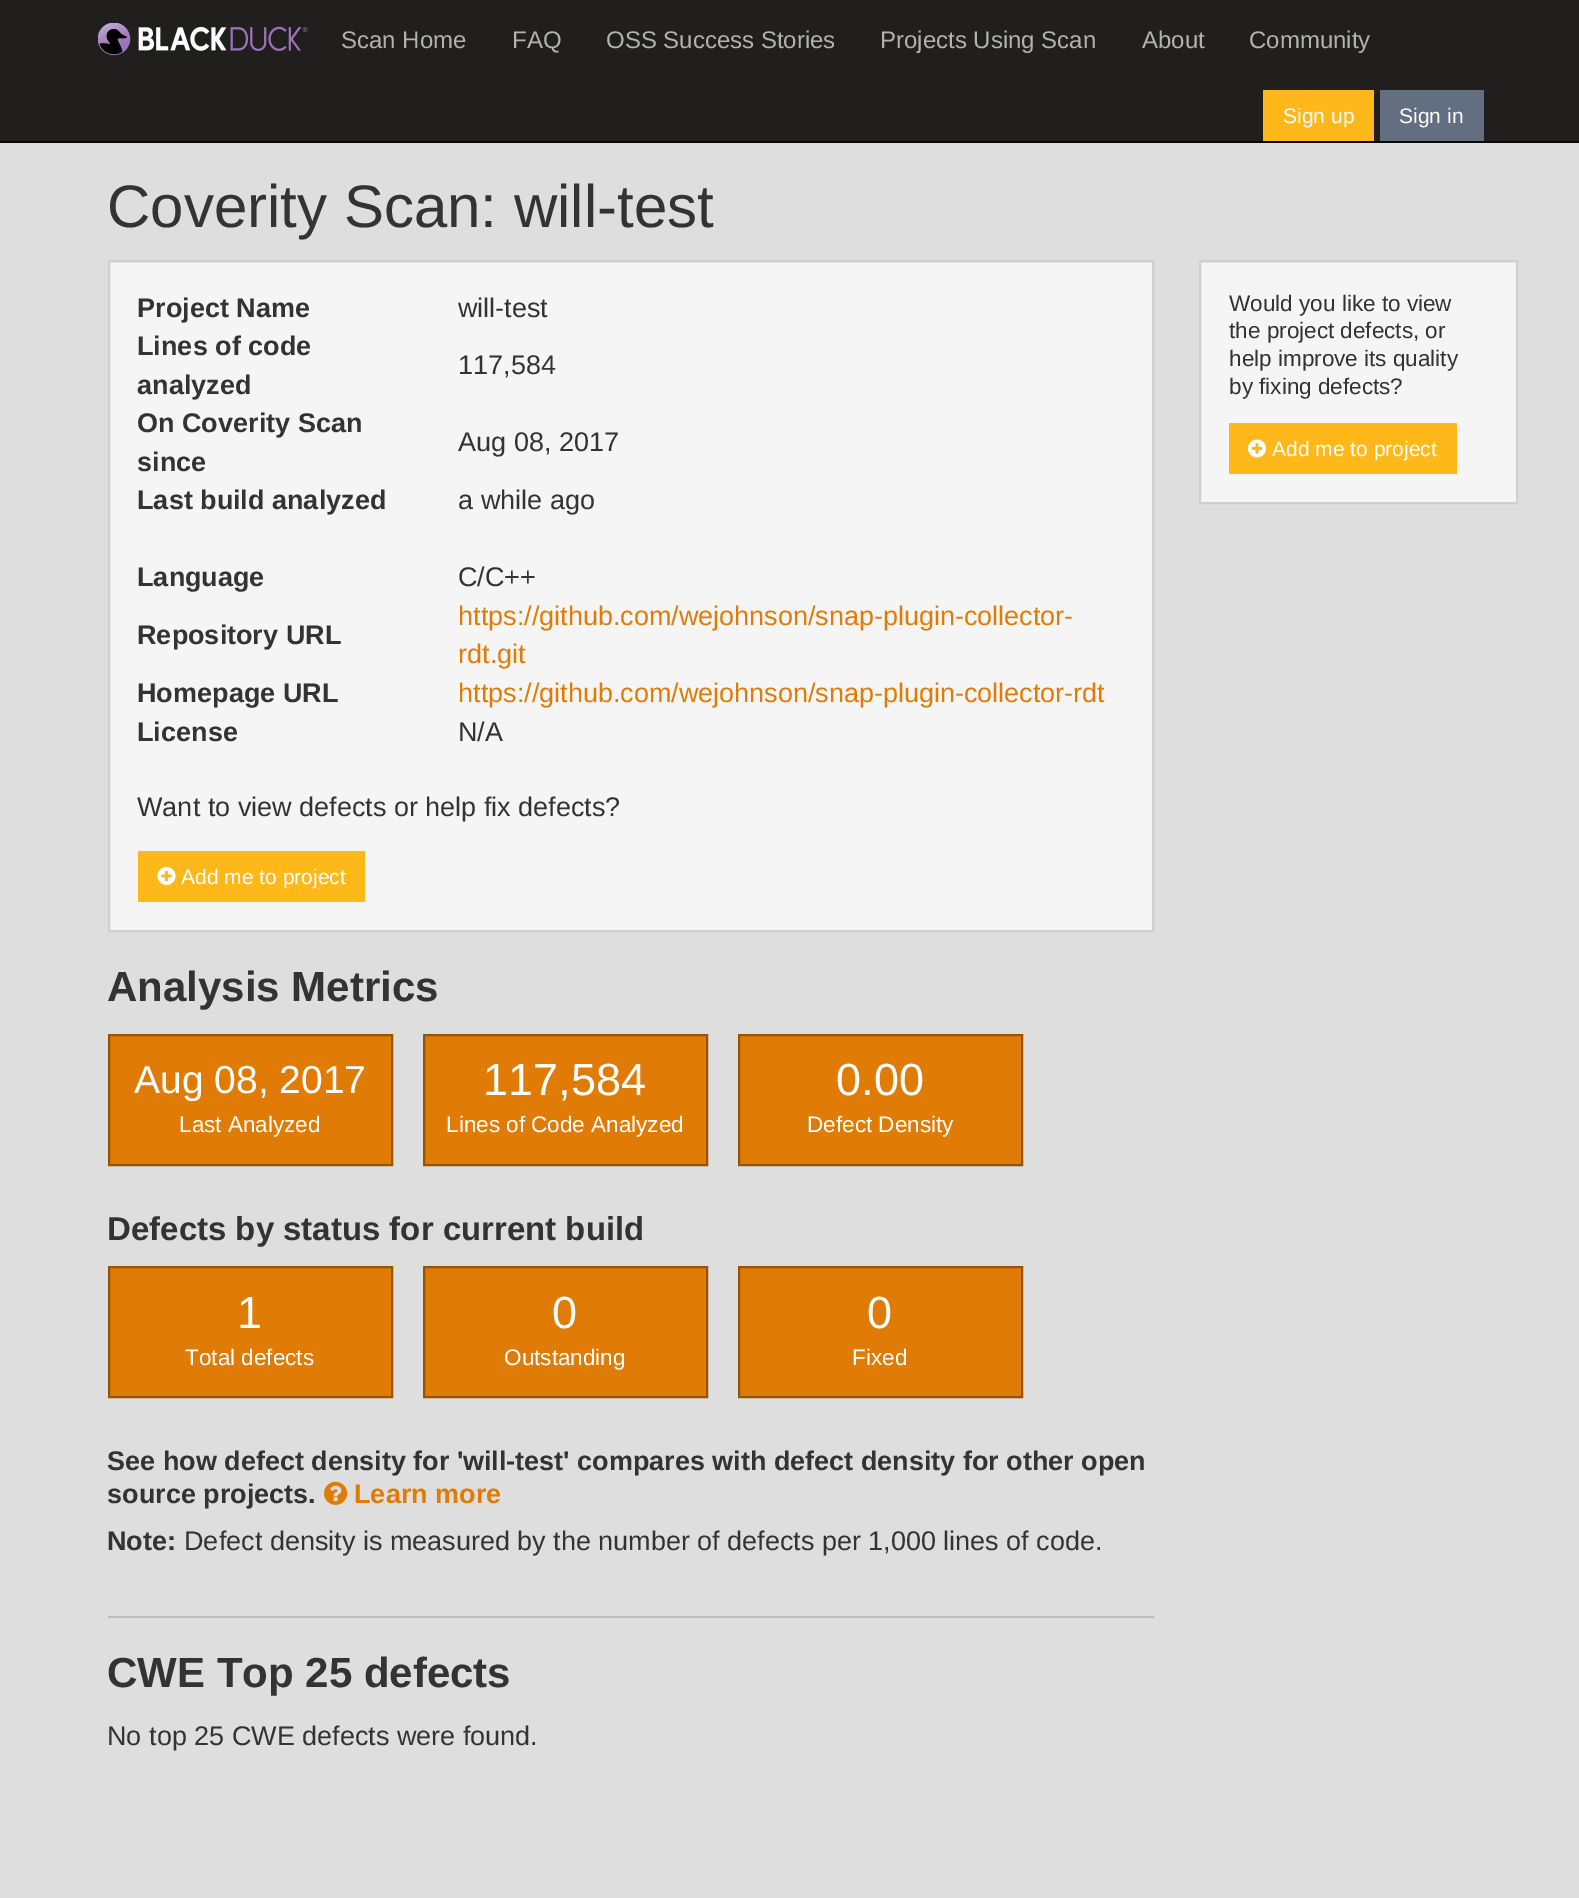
%!PS-Adobe-3.0
%%BoundingBox: 0 0 1579 1898
%%LanguageLevel: 3
%%Pages: 1
%%EndComments
%%BeginProlog
/m { moveto } bind def
/l { lineto } bind def
/h { closepath } bind def
/f { fill } bind def
/S { stroke } bind def
/q { gsave } bind def
/Q { grestore } bind def
/w { setlinewidth } bind def
/fn { [ exch dup neg 0 0 3 -1 roll 0 0 ] selectfont } def
/tx { moveto show } def
/bx { rectfill } def
/im { 5 dict begin { /h /w /y /x /name } { exch def } forall
  gsave x y translate w h scale
  w h 8 [w 0 0 h 0 0] name (r) file false 3 colorimage grestore end } def
%%EndProlog
%%BeginSetup
<< /PageSize [1579 1898] >> setpagedevice
%%EndSetup
%%Page: 1 1
0 1898 translate 1 -1 scale
4 setmiterlimit
0.871 setgray
0 0 1579 1898 bx
0.129 0.118 0.118 setrgbcolor
0 0 1579 141 bx
0.035 setgray
0 141 1579 2 bx
(image0.raw) 98 23 210 33 im
/LiberationSans-Regular 24 fn
0.694 0.702 0.702 setrgbcolor
(Scan Home) 341 48 tx
(FAQ) 512 48 tx
(OSS Success Stories) 606 48 tx
(Projects Using Scan) 880 48 tx
(About) 1142 48 tx
(Community) 1249 48 tx
1 0.722 0.098 setrgbcolor
1263 90 111 51 bx
/LiberationSans-Regular 21 fn
1 setgray
(Sign up) 1283 123 tx
0.392 0.431 0.506 setrgbcolor
1380 90 104 51 bx
1 setgray
(Sign in) 1399 123 tx
/LiberationSans-Regular 60 fn
0.2 setgray
(Coverity Scan: will-test) 107 227 tx
0.961 setgray
110 263 1042 667 bx
0.914 setgray
110 262 1042 1 bx
0.812 setgray
2 w
109 261 1044 670 rectstroke
/LiberationSans-Bold 27 fn
0.2 setgray
(Project Name) 137 317 tx
/LiberationSans-Regular 27 fn
(will-test) 458 317 tx
/LiberationSans-Bold 27 fn
(Lines of code) 137 355 tx
(analyzed) 137 394 tx
/LiberationSans-Regular 27 fn
(117,584) 458 374 tx
/LiberationSans-Bold 27 fn
(On Coverity Scan) 137 432 tx
(since) 137 471 tx
/LiberationSans-Regular 27 fn
(Aug 08, 2017) 458 451 tx
/LiberationSans-Bold 27 fn
(Last build analyzed) 137 509 tx
/LiberationSans-Regular 27 fn
(a while ago) 458 509 tx
/LiberationSans-Bold 27 fn
(Language) 137 586 tx
/LiberationSans-Regular 27 fn
(C/C++) 458 586 tx
/LiberationSans-Bold 27 fn
(Repository URL) 137 644 tx
/LiberationSans-Regular 27 fn
0.878 0.486 0.02 setrgbcolor
(https://github.com/wejohnson/snap-plugin-collector-) 458 625 tx
(rdt.git) 458 663 tx
/LiberationSans-Bold 27 fn
0.2 setgray
(Homepage URL) 137 702 tx
/LiberationSans-Regular 27 fn
0.878 0.486 0.02 setrgbcolor
(https://github.com/wejohnson/snap-plugin-collector-rdt) 458 702 tx
/LiberationSans-Bold 27 fn
0.2 setgray
(License) 137 741 tx
/LiberationSans-Regular 27 fn
(N/A) 458 741 tx
(Want to view defects or help fix defects?) 137 816 tx
1 0.722 0.098 setrgbcolor
138 851 227 51 bx
(image1.raw) 157 867 19 18 im
/LiberationSans-Regular 21 fn
1 setgray
(Add me to project) 181 884 tx
/LiberationSans-Bold 42 fn
0.2 setgray
(Analysis Metrics) 107 1001 tx
0.878 0.486 0.02 setrgbcolor
109 1035 m 392 1035 l 392 1165 l 109 1165 l h q f Q
0.584 0.325 0.012 setrgbcolor
S
/LiberationSans-Regular 39 fn
1 setgray
(Aug 08, 2017) 134 1093 tx
/LiberationSans-Regular 22.5 fn
(Last Analyzed) 179 1132 tx
0.878 0.486 0.02 setrgbcolor
424 1035 m 707 1035 l 707 1165 l 424 1165 l h q f Q
0.584 0.325 0.012 setrgbcolor
S
/LiberationSans-Regular 45 fn
1 setgray
(117,584) 483 1095 tx
/LiberationSans-Regular 22.5 fn
(Lines of Code Analyzed) 446 1132 tx
0.878 0.486 0.02 setrgbcolor
739 1035 m 1022 1035 l 1022 1165 l 739 1165 l h q f Q
0.584 0.325 0.012 setrgbcolor
S
/LiberationSans-Regular 45 fn
1 setgray
(0.00) 836 1095 tx
/LiberationSans-Regular 22.5 fn
(Defect Density) 807 1132 tx
/LiberationSans-Bold 33 fn
0.2 setgray
(Defects by status for current build) 107 1240 tx
0.878 0.486 0.02 setrgbcolor
109 1267 m 392 1267 l 392 1397 l 109 1397 l h q f Q
0.584 0.325 0.012 setrgbcolor
S
/LiberationSans-Regular 45 fn
1 setgray
(1) 237 1328 tx
/LiberationSans-Regular 22.5 fn
(Total defects) 185 1365 tx
0.878 0.486 0.02 setrgbcolor
424 1267 m 707 1267 l 707 1397 l 424 1397 l h q f Q
0.584 0.325 0.012 setrgbcolor
S
/LiberationSans-Regular 45 fn
1 setgray
(0) 552 1328 tx
/LiberationSans-Regular 22.5 fn
(Outstanding) 504 1365 tx
0.878 0.486 0.02 setrgbcolor
739 1267 m 1022 1267 l 1022 1397 l 739 1397 l h q f Q
0.584 0.325 0.012 setrgbcolor
S
/LiberationSans-Regular 45 fn
1 setgray
(0) 867 1328 tx
/LiberationSans-Regular 22.5 fn
(Fixed) 852 1365 tx
/LiberationSans-Bold 27 fn
0.2 setgray
(See how defect density for 'will-test' compares with defect density for other open) 107 1470 tx
(source projects.) 107 1503 tx
(image2.raw) 324 1481 24 24 im
0.878 0.486 0.02 setrgbcolor
(Learn more) 354 1503 tx
0.2 setgray
(Note:) 107 1550 tx
/LiberationSans-Regular 27 fn
(Defect density is measured by the number of defects per 1,000 lines of code.) 184 1550 tx
0.733 setgray
108 1616 1046 2 bx
/LiberationSans-Bold 42 fn
0.2 setgray
(CWE Top 25 defects) 107 1687 tx
/LiberationSans-Regular 27 fn
(No top 25 CWE defects were found.) 107 1745 tx
0.961 setgray
1201 263 315 239 bx
0.914 setgray
1200 262 317 1 bx
0.812 setgray
1200 261 317 242 rectstroke
/LiberationSans-Regular 22.5 fn
0.2 setgray
(Would you like to view) 1229 311 tx
(the project defects, or) 1229 338 tx
(help improve its quality) 1229 366 tx
(by fixing defects?) 1229 394 tx
1 0.722 0.098 setrgbcolor
1229 423 228 51 bx
(image3.raw) 1248 439 18 19 im
/LiberationSans-Regular 21 fn
1 setgray
(Add me to project) 1272 456 tx
showpage
%%EOF
